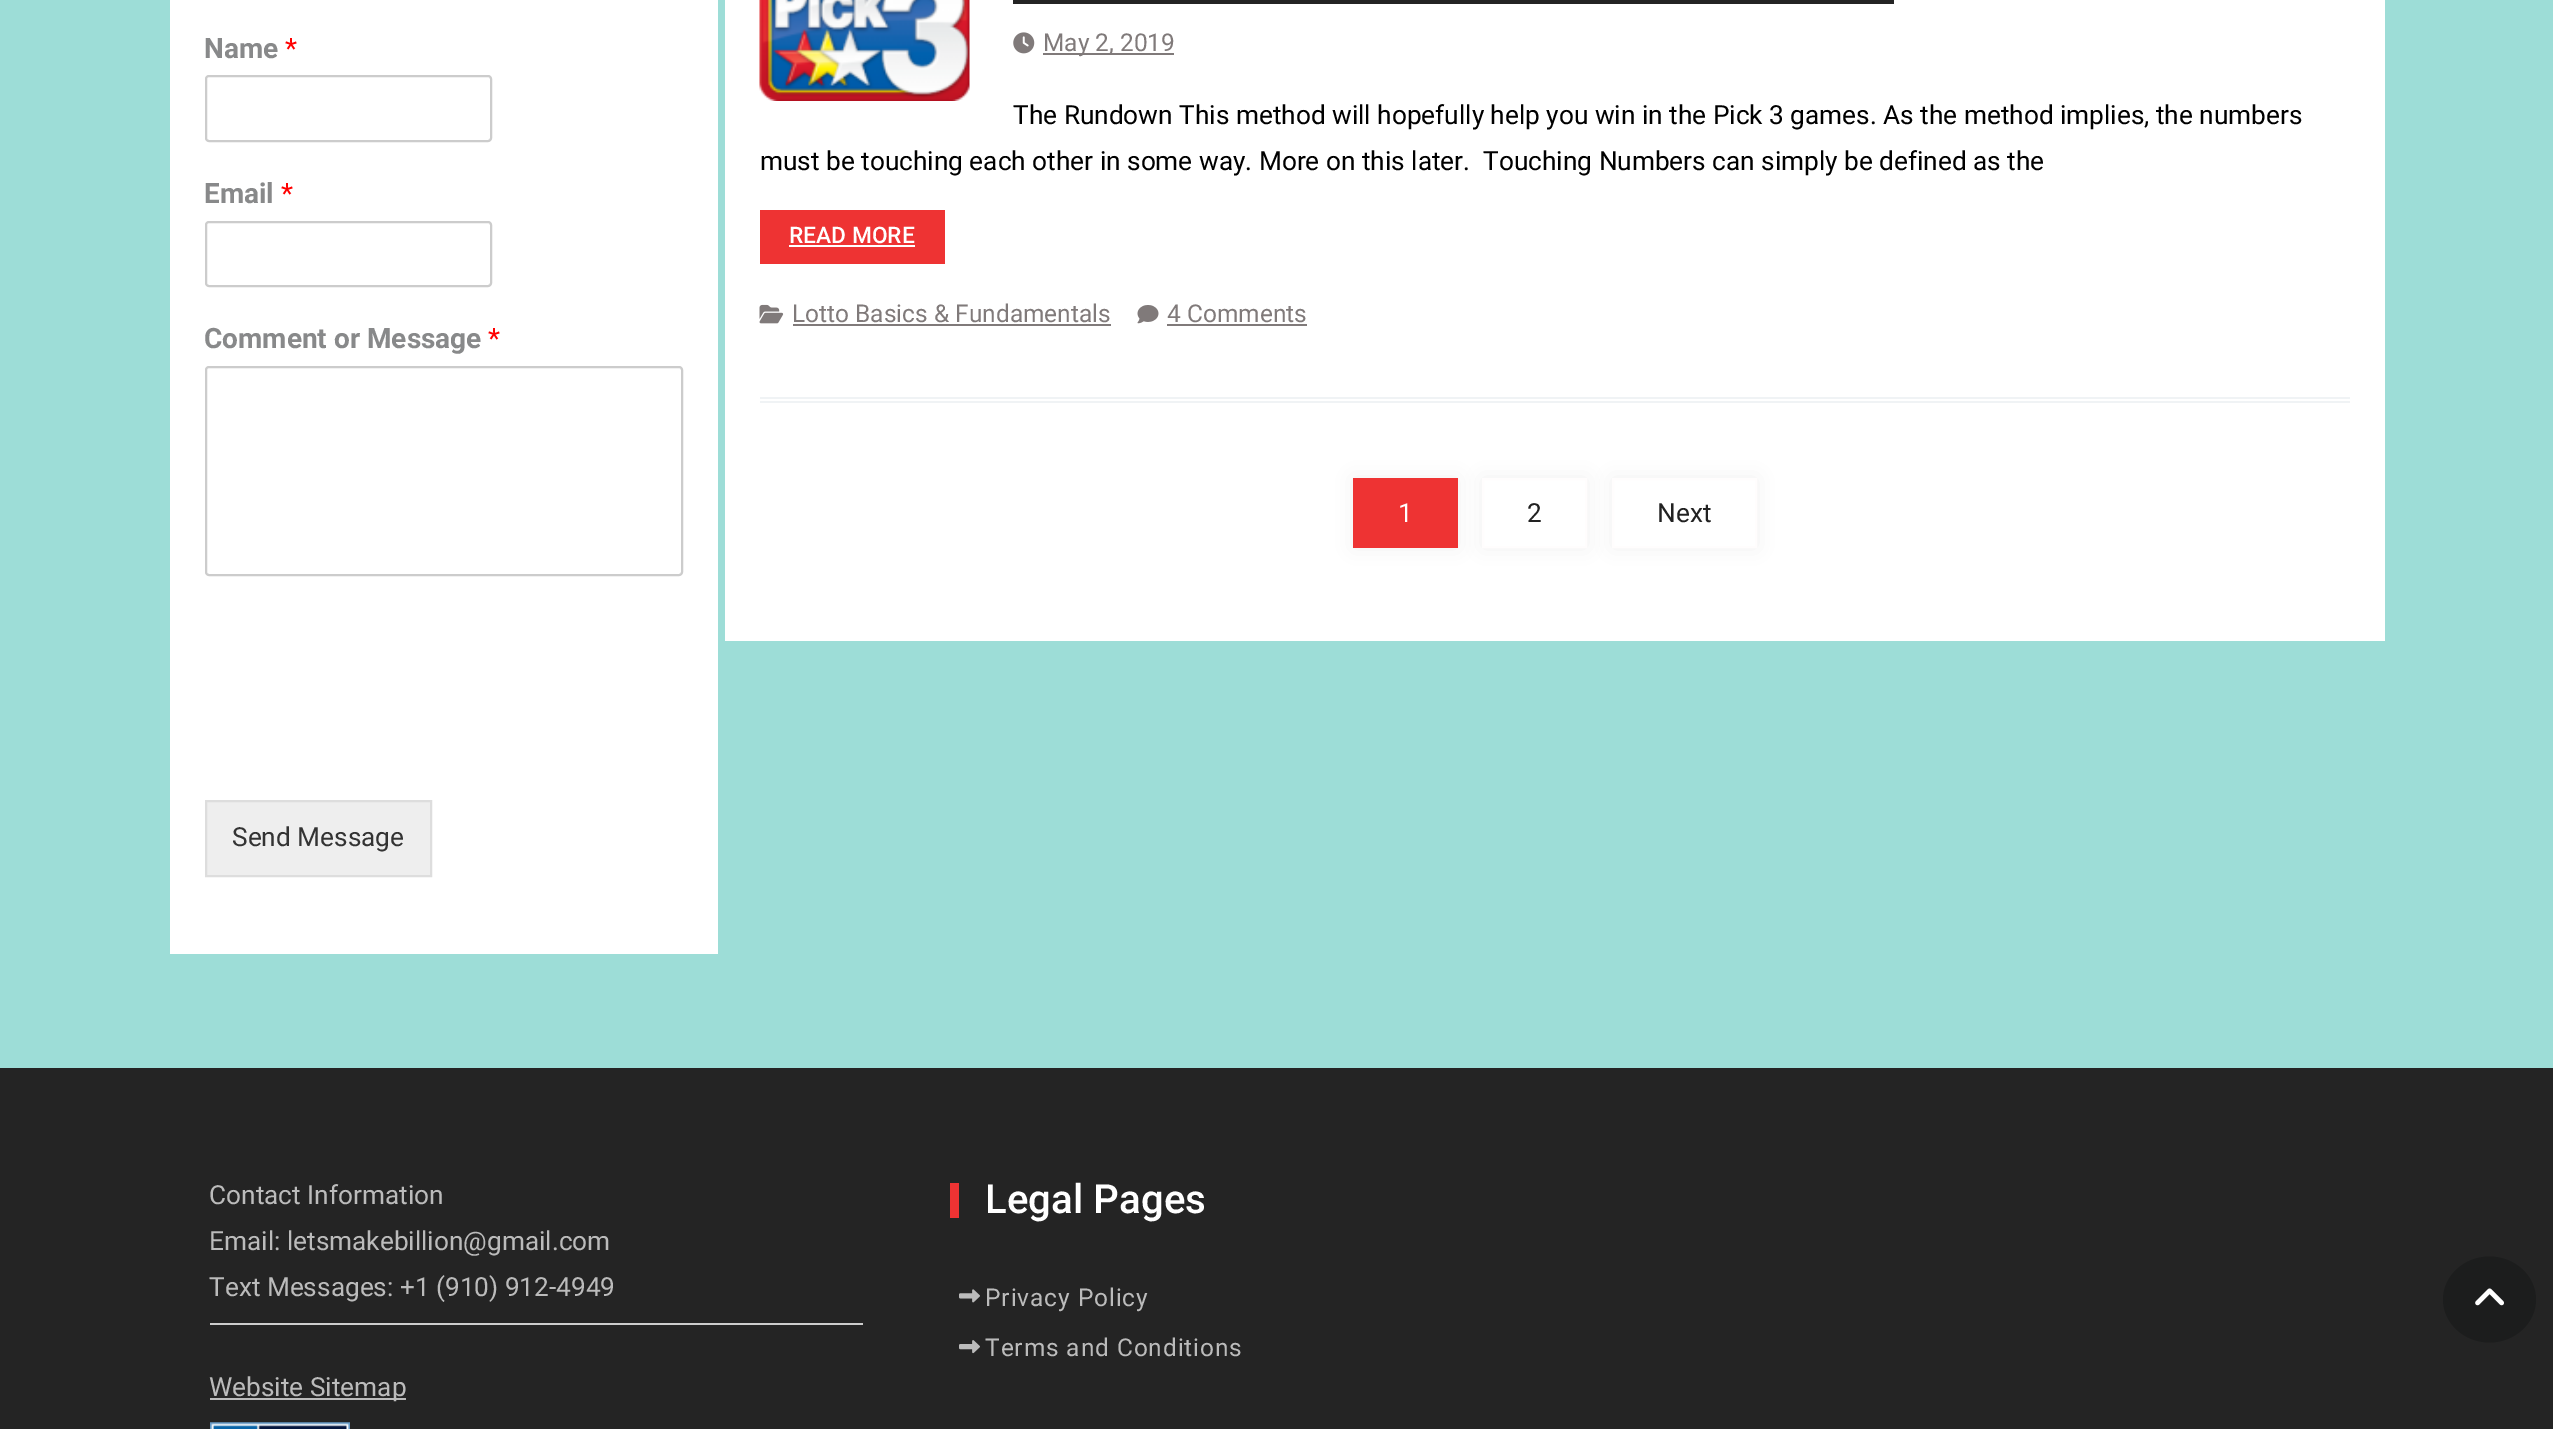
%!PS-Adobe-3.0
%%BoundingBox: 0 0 2553 1429
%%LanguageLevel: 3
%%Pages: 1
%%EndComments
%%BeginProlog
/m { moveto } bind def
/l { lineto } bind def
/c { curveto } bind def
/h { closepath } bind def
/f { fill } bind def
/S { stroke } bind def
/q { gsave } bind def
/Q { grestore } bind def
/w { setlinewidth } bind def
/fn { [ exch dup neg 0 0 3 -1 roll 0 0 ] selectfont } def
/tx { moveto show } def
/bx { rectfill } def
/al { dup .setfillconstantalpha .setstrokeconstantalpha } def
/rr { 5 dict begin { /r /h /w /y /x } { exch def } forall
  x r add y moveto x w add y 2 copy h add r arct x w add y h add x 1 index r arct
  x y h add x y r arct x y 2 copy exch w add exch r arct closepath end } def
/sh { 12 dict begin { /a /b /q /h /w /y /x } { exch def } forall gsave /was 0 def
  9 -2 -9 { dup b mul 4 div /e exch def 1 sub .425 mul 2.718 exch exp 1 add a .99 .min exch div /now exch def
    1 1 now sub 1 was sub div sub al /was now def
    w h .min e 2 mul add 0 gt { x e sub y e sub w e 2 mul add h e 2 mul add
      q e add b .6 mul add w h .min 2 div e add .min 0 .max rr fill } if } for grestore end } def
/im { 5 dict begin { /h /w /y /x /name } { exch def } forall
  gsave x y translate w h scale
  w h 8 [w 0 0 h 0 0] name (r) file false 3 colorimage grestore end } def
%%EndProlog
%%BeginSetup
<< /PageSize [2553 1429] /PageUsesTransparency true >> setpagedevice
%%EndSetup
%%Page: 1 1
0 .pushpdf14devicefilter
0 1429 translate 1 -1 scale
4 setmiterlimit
0.616 0.867 0.843 setrgbcolor
0 0 2553 1429 bx
1 setgray
170 0 548 954 bx
/Roboto-Bold 28 fn
0.533 0.537 0.541 setrgbcolor
(Name) 204 58 tx
/Roboto-Regular 28 fn
1 0 0 setrgbcolor
(*) 285 58 tx
0.8 setgray
2 w
206 76 285 65 3 rr S
/Roboto-Bold 28 fn
0.533 0.537 0.541 setrgbcolor
(Email) 204 203 tx
/Roboto-Regular 28 fn
1 0 0 setrgbcolor
(*) 281 203 tx
0.8 setgray
206 222 285 64 3 rr S
/Roboto-Bold 28 fn
0.533 0.537 0.541 setrgbcolor
(Comment or Message) 204 348 tx
/Roboto-Regular 28 fn
1 0 0 setrgbcolor
(*) 488 348 tx
0.8 setgray
206 367 476 208 3 rr S
0.933 setgray
206 801 m 431 801 l 431 876 l 206 876 l h q f Q
0.867 setgray
S
/Roboto-Regular 26.25 fn
0.2 setgray
(Send Message) 232 846 tx
1 setgray
725 0 1660 641 bx
0.941 0.953 0.961 setrgbcolor
760 397 1590 2 bx
760 401 1590 2 bx
(image0.raw) 759 0 211 101 im
0.141 setgray
1013 0 881 4 bx
(image1.raw) 1013 32 22 22 im
0.502 0.478 0.478 setrgbcolor
1043 53 131 2 bx
/Roboto-Regular 24.5 fn
(May 2, 2019) 1043 51 tx
/Roboto-Regular 26.25 fn
0 setgray
(The Rundown This method will hopefully help you win in the Pick 3 games. As the method implies, the numbers) 1013 124 tx
(must be touching each other in some way. More on this later.  Touching Numbers can simply be defined as the) 760 170 tx
0.933 0.2 0.2 setrgbcolor
760 210 185 54 bx
/Roboto-Medium 22.75 fn
1 setgray
(READ MORE) 789 243 tx
789 245 126 2 bx
(image2.raw) 759 304 25 20 im
/Roboto-Regular 24.5 fn
0.502 0.478 0.478 setrgbcolor
(Lotto Basics & Fundamentals) 792 322 tx
793 324 318 2 bx
(image3.raw) 1137 305 22 19 im
(4 Comments) 1167 322 tx
1167 324 140 2 bx
0.902 setgray
1353 478 105 70 0 10.5 0.66 sh
0.933 0.2 0.2 setrgbcolor
1353 478 105 70 bx
/Roboto-Regular 26.25 fn
1 setgray
(1) 1398 522 tx
0.902 setgray
1482 478 105 70 0 10.5 0.66 sh
1 setgray
1483 479 m 1586 479 l 1586 547 l 1483 547 l h q f Q
1 0.992 0.992 setrgbcolor
S
0.133 setgray
(2) 1527 522 tx
0.902 setgray
1612 478 145 70 0 10.5 0.66 sh
1 setgray
1613 479 m 1756 479 l 1756 547 l 1613 547 l h q f Q
1 0.992 0.992 setrgbcolor
S
0.133 setgray
(Next) 1657 522 tx
0.141 setgray
0 1068 2553 361 bx
0.733 setgray
(Contact Information) 209 1204 tx
(Email: letsmakebillion@gmail.com) 209 1250 tx
(Text Messages: +1 \(910\) 912-4949) 209 1296 tx
0.8 setgray
210 1323 653 2 bx
0.733 setgray
210 1398 196 2 bx
(Website Sitemap) 209 1396 tx
(image4.raw) 210 1422 140 7 im
0.933 0.2 0.2 setrgbcolor
950 1183 9 35 bx
/Roboto-Medium 40.25 fn
1 setgray
(Legal Pages) 985 1213 tx
(image5.raw) 959 1289 21 14 im
/Roboto-Regular 24.5 fn
0.733 setgray
985 1306 m 0.9 0 (Privacy Policy) ashow
(image6.raw) 959 1340 21 14 im
985 1356 m 0.9 0 (Terms and Conditions) ashow
0.11 0.114 0.114 setrgbcolor
2489.5 1256.5 m 2515 1256.5 2536 1276 2536 1299.5 c 2536 1323 2515 1342.5 2489.5 1342.5 c 2464 1342.5 2443 1323 2443 1299.5 c 2443 1276 2464 1256.5 2489.5 1256.5 c h f
(image7.raw) 2475 1288 29 18 im
.poppdf14devicefilter showpage
%%EOF
